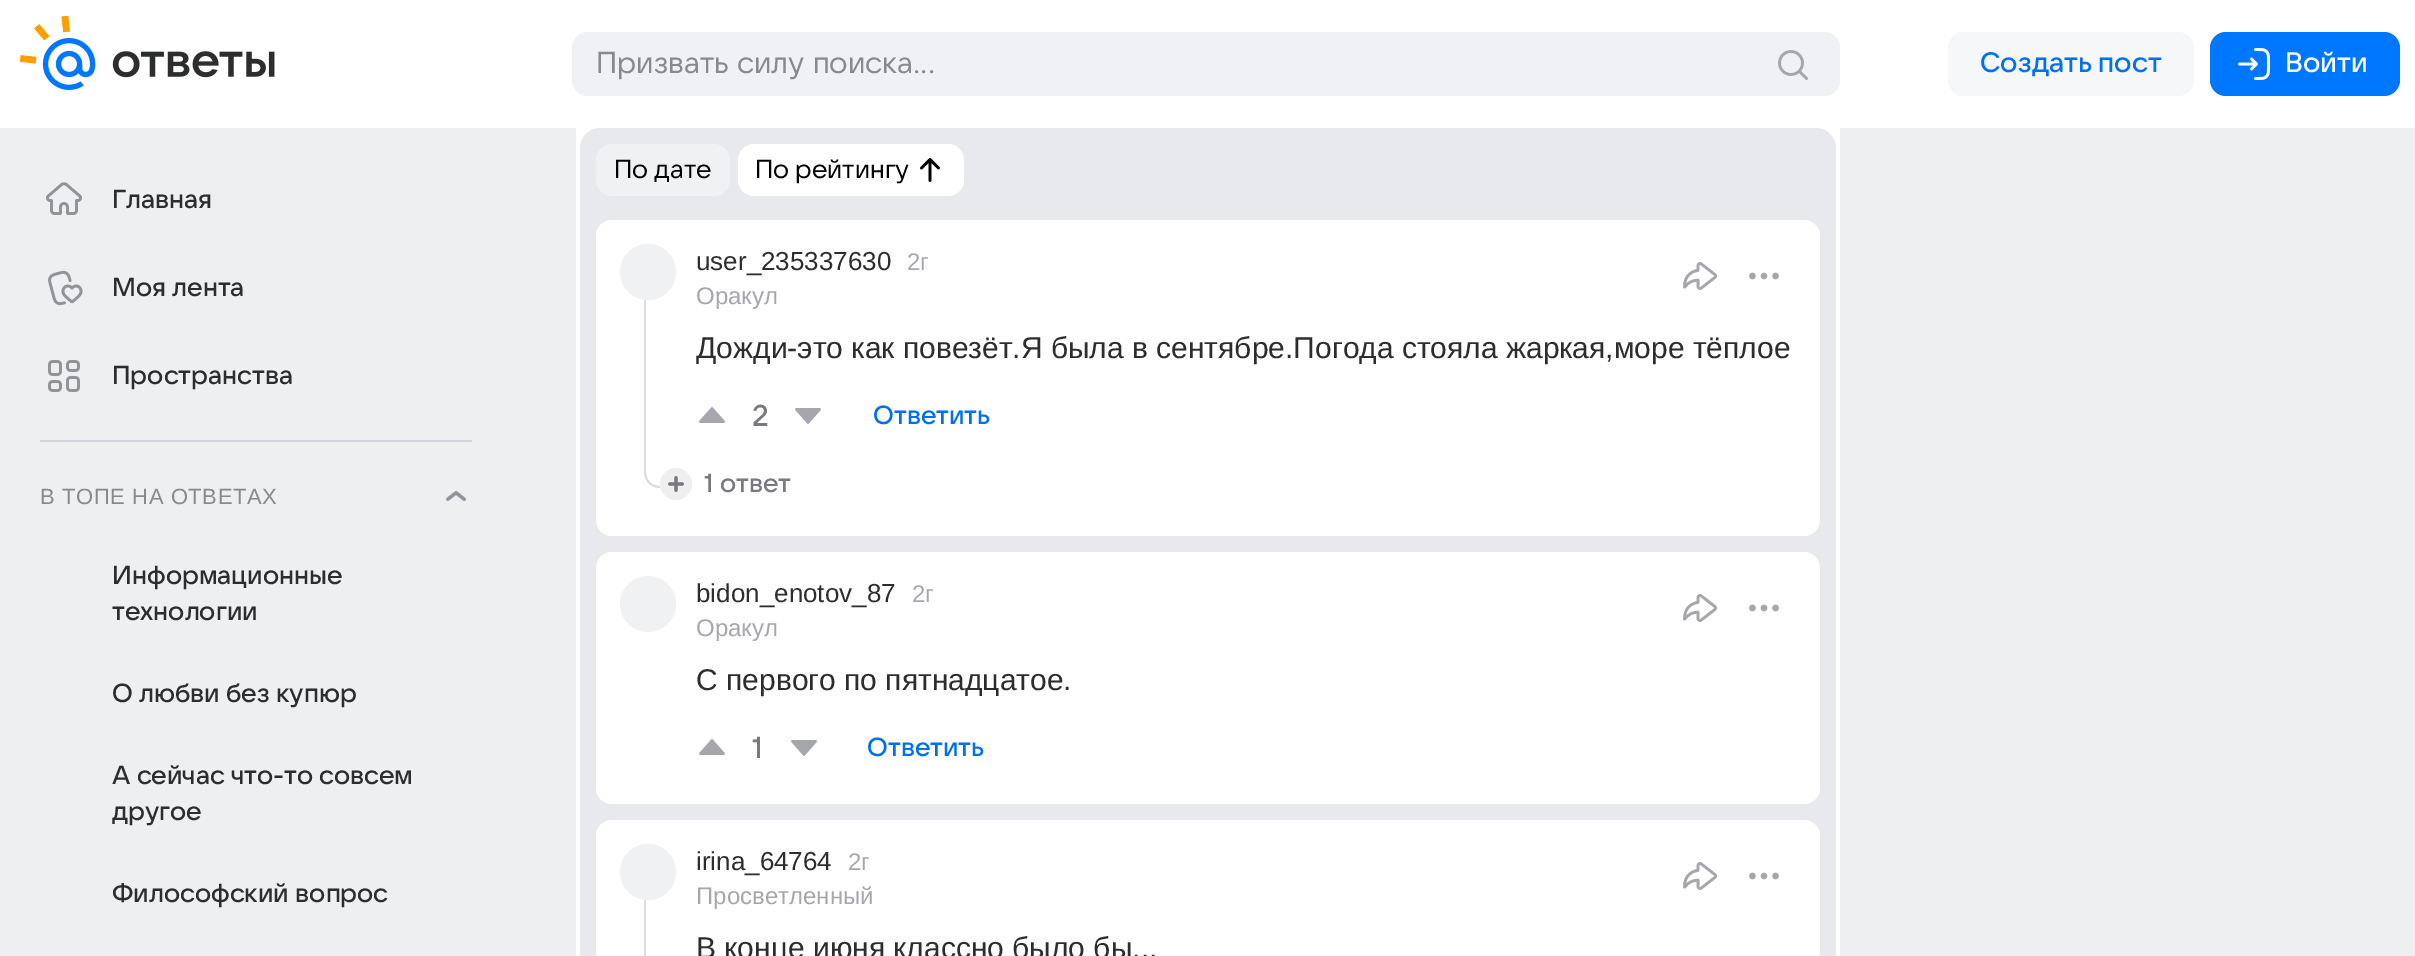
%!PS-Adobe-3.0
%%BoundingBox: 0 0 2415 956
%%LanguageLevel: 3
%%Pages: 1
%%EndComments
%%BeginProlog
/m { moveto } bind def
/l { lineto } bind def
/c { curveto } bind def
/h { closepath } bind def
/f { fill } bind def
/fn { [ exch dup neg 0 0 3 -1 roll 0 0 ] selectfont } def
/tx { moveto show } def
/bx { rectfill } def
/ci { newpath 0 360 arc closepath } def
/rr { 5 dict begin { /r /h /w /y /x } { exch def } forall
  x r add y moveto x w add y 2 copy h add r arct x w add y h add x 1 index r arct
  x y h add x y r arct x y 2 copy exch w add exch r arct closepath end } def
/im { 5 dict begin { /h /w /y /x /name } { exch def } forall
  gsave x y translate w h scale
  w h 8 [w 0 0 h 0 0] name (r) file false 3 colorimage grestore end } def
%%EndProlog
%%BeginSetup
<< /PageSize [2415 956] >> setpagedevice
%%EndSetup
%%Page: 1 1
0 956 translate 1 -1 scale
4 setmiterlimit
0.933 0.937 0.945 setrgbcolor
0 0 2415 956 bx
1 setgray
0 0 2415 128 bx
(image0.raw) 20 16 255 74 im
0.941 0.945 0.957 setrgbcolor
572 32 1268 64 16 rr f
/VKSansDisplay-Regular 30 fn
0.529 0.537 0.561 setrgbcolor
596 73 m 1 0 32 (Призвать силу поиска...) widthshow
(image1.raw) 1778 50 30 30 im
0.965 0.969 0.973 setrgbcolor
1948 32 246 64 16 rr f
/VKSansDisplay-Medium 28 fn
0 0.439 0.941 setrgbcolor
(Создать пост) 1980 72 tx
0 0.467 1 setrgbcolor
2210 32 190 64 16 rr f
(image2.raw) 2238 48 32 32 im
1 setgray
(Войти) 2285 72 tx
(image3.raw) 46 182 36 33 im
/VKSansDisplay-Medium 26 fn
0.173 0.176 0.18 setrgbcolor
(Главная) 112 208 tx
(image4.raw) 48 270 35 36 im
(Моя лента) 112 296 tx
(image5.raw) 48 360 32 32 im
(Пространства) 112 384 tx
0.82 0.831 0.859 setrgbcolor
40 440 432 2 bx
/LiberationSans-Regular 22 fn
0.529 0.537 0.561 setrgbcolor
40 504 m 0.6 0 (В ТОПЕ НА ОТВЕТАХ) ashow
(image6.raw) 446 491 20 10 im
/VKSansDisplay-Medium 26 fn
0.173 0.176 0.18 setrgbcolor
(Информационные) 112 584 tx
(технологии) 112 620 tx
(О любви без купюр) 112 702 tx
(А сейчас что-то совсем) 112 784 tx
(другое) 112 820 tx
(Философский вопрос) 112 902 tx
1 setgray
576 128 1264 828 bx
0.906 0.914 0.925 setrgbcolor
580 128 1256 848 20 rr f
0.941 0.945 0.953 setrgbcolor
596 144 134 52 16 rr f
/VKSansDisplay-Regular 26 fn
0 setgray
(По дате) 614 178 tx
1 setgray
738 144 226 52 16 rr f
0 setgray
(По рейтингу) 755 178 tx
(image7.raw) 920 158 20 24 im
1 setgray
596 220 1224 316 16 rr f
0.855 0.863 0.878 setrgbcolor
644 299 2 125 bx
0.941 0.945 0.953 setrgbcolor
648 272 28 ci f
/LiberationSans-Regular 26 fn
0.173 0.176 0.18 setrgbcolor
(user_235337630) 696 270 tx
/LiberationSans-Regular 24 fn
0.647 0.655 0.678 setrgbcolor
(Оракул) 696 304 tx
(2г) 907 270 tx
(image8.raw) 1683 262 34 28 im
(image9.raw) 1749 272 30 8 im
/LiberationSans-Regular 30 fn
0.173 0.176 0.18 setrgbcolor
(Дожди-это как повезёт.Я была в сентябре.Погода стояла жаркая,море тёплое) 696 358 tx
(image10.raw) 699 407 26 16 im
/VKSansDisplay-Medium 30 fn
0.475 0.478 0.502 setrgbcolor
(2) 752 426 tx
(image11.raw) 795 408 26 16 im
/VKSansDisplay-Medium 26 fn
0 0.439 0.941 setrgbcolor
(Ответить) 873 424 tx
0.855 0.863 0.878 setrgbcolor
644 424 m 660 424 l 660 488 l 651 488 644 481 644 472 c h 646 424 m 660 424 l 660 486 l 652 486 646 480 646 472 c h eofill
(image12.raw) 660 468 32 32 im
0.475 0.478 0.502 setrgbcolor
(1 ответ) 704 492 tx
1 setgray
596 552 1224 252 16 rr f
0.941 0.945 0.953 setrgbcolor
648 604 28 ci f
/LiberationSans-Regular 26 fn
0.173 0.176 0.18 setrgbcolor
(bidon_enotov_87) 696 602 tx
/LiberationSans-Regular 24 fn
0.647 0.655 0.678 setrgbcolor
(Оракул) 696 636 tx
(2г) 912 602 tx
(image8.raw) 1683 594 34 28 im
(image9.raw) 1749 604 30 8 im
/LiberationSans-Regular 30 fn
0.173 0.176 0.18 setrgbcolor
(С первого по пятнадцатое.) 696 690 tx
(image10.raw) 699 739 26 16 im
/VKSansDisplay-Medium 30 fn
0.475 0.478 0.502 setrgbcolor
(1) 752 758 tx
(image11.raw) 791 740 26 16 im
/VKSansDisplay-Medium 26 fn
0 0.439 0.941 setrgbcolor
(Ответить) 867 756 tx
1 setgray
596 820 1224 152 16 rr f
0.855 0.863 0.878 setrgbcolor
644 899 2 57 bx
0.941 0.945 0.953 setrgbcolor
648 872 28 ci f
/LiberationSans-Regular 26 fn
0.173 0.176 0.18 setrgbcolor
(irina_64764) 696 870 tx
/LiberationSans-Regular 24 fn
0.647 0.655 0.678 setrgbcolor
(Просветленный) 696 904 tx
(2г) 848 870 tx
(image8.raw) 1683 862 34 28 im
(image9.raw) 1749 872 30 8 im
/LiberationSans-Regular 30 fn
0.173 0.176 0.18 setrgbcolor
(В конце июня классно было бы...) 696 958 tx
showpage
%%EOF
